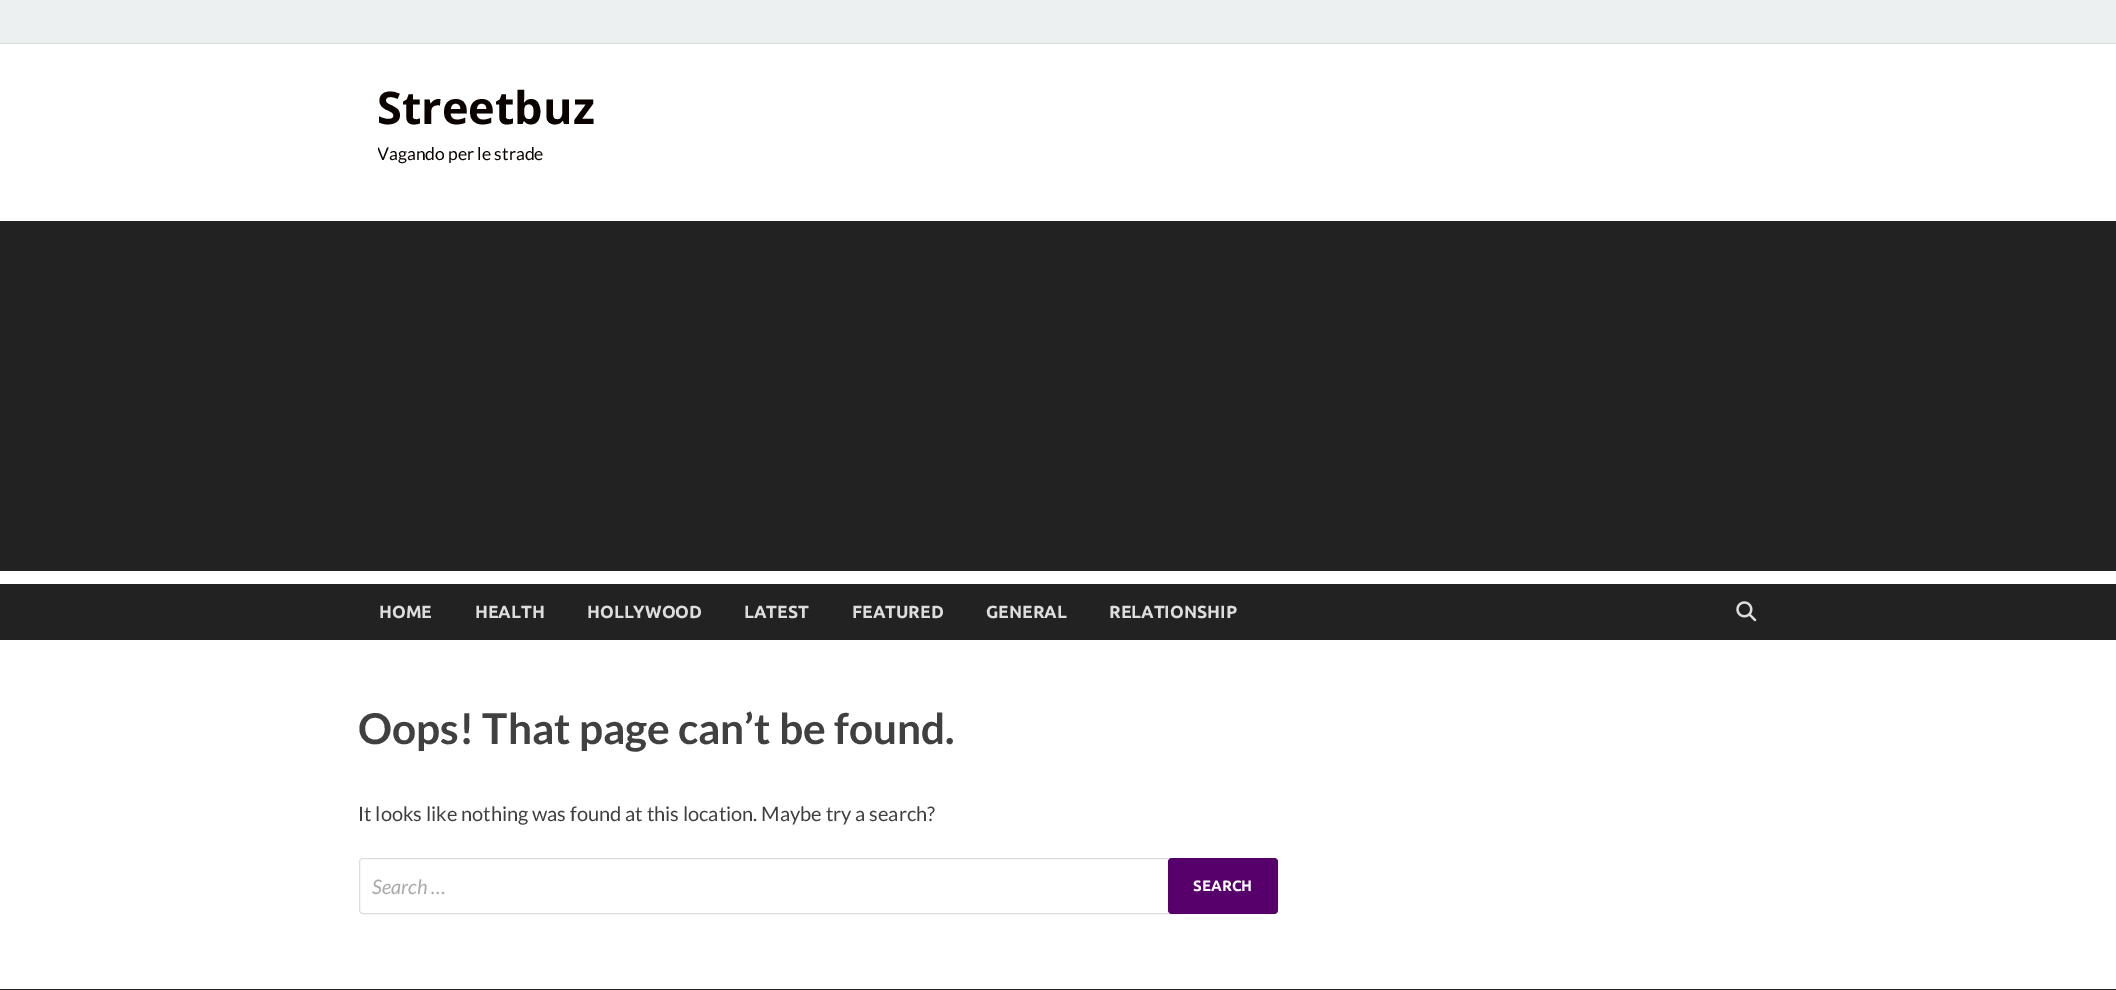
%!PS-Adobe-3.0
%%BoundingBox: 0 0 2116 990
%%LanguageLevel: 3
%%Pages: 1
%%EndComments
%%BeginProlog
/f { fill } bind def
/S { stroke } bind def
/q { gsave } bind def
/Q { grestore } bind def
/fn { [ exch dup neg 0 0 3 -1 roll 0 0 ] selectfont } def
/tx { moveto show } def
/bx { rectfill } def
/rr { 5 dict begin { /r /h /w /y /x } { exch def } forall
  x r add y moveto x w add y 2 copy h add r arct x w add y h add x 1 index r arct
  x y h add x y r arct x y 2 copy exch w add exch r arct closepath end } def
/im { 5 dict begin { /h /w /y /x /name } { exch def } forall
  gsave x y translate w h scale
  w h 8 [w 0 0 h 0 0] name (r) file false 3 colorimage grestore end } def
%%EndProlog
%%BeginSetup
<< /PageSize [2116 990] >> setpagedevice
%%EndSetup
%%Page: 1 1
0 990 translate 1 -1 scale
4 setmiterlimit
1 setgray
0 0 2116 990 bx
0.925 0.941 0.945 setrgbcolor
0 0 2116 43 bx
0.867 setgray
0 43 2116 1 bx
/OpenSans-Bold 45 fn
0.039 0.012 0 setrgbcolor
(Streetbuz) 377 124 tx
q
378 79 216 87 rectclip
/Lato-Regular 17.5 fn
(Vagando per le strade) 377 160 tx
Q
0.133 setgray
0 221 2116 350 bx
0 584 2116 56 bx
/Ubuntu-Bold 17.5 fn
0.867 setgray
(HOME) 379 618 tx
(HEALTH) 475 618 tx
(HOLLYWOOD) 587 618 tx
(LATEST) 744 618 tx
(FEATURED) 852 618 tx
(GENERAL) 986 618 tx
(RELATIONSHIP) 1109 618 tx
(image0.raw) 1736 601 21 21 im
/Lato-Bold 42.5 fn
0.251 setgray
(Oops! That page can’t be found.) 358 744 tx
/Lato-Regular 20 fn
(It looks like nothing was found at this location. Maybe try a search?) 358 821 tx
0.867 setgray
359.5 858.5 918 55 3.5 rr S
/Lato-Italic 20 fn
0.667 setgray
(Search …) 372 894 tx
0.341 0 0.42 setrgbcolor
1168 858 110 56 4 rr f
/Ubuntu-Bold 15 fn
1 setgray
(SEARCH) 1193 891 tx
0.133 setgray
0 989 2116 1 bx
showpage
%%EOF
